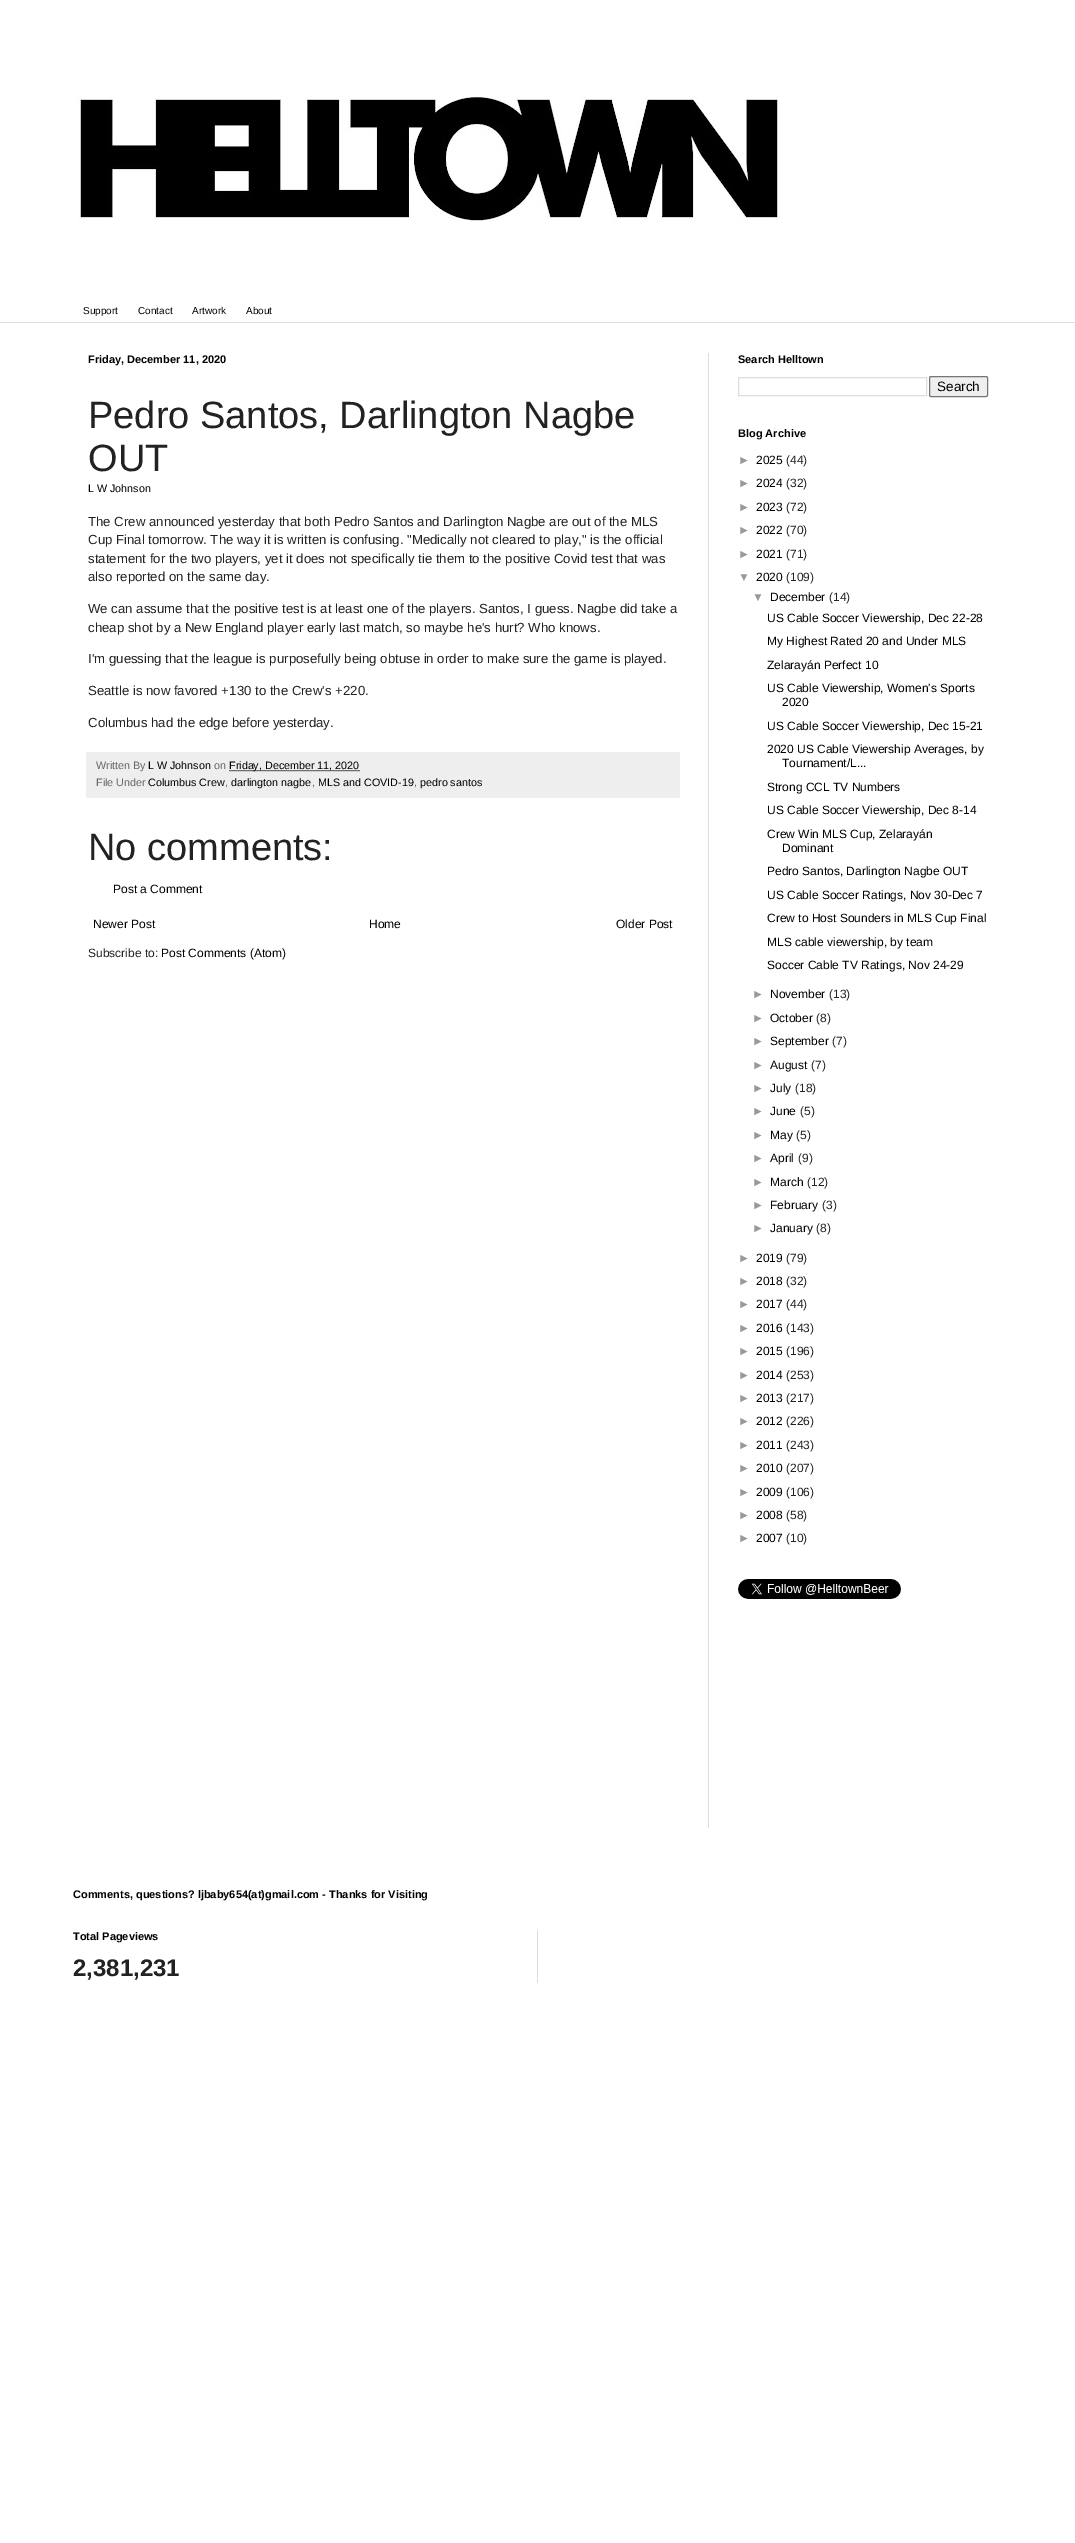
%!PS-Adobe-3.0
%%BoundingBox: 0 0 1075 2543
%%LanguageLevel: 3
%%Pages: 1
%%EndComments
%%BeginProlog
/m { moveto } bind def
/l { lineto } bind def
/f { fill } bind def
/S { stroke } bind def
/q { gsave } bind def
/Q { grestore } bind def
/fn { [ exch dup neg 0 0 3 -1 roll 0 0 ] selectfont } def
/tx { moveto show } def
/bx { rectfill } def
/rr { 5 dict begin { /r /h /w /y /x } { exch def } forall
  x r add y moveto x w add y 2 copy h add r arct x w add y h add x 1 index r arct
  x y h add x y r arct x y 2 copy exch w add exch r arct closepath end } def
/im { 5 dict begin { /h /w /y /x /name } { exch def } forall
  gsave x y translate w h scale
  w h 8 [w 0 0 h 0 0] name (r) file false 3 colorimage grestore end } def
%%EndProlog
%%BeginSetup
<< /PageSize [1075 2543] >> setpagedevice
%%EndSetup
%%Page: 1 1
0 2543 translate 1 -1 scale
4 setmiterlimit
1 setgray
0 0 1075 2543 bx
(image0.raw) 77 94 701 128 im
/LiberationSans-Regular 10 fn
0 setgray
(Support) 83 314 tx
(Contact) 138 314 tx
(Artwork) 192 314 tx
(About) 246 314 tx
0.867 setgray
0 322 1075 1 bx
708 353 1 1475 bx
/LiberationSans-Bold 11 fn
0 setgray
(Friday, December 11, 2020) 88 363 tx
/LiberationSans-Regular 38 fn
0.133 setgray
(Pedro Santos, Darlington Nagbe) 88 428 tx
(OUT) 88 471 tx
/LiberationSans-Regular 10.75 fn
0 setgray
(L W Johnson) 88 492 tx
/LiberationSans-Regular 13.2 fn
0.133 setgray
(The Crew announced yesterday that both Pedro Santos and Darlington Nagbe are out of the MLS) 88 526 tx
(Cup Final tomorrow. The way it is written is confusing. "Medically not cleared to play," is the official) 88 544 tx
(statement for the two players, yet it does not specifically tie them to the positive Covid test that was) 88 563 tx
(also reported on the same day.) 88 581 tx
(We can assume that the positive test is at least one of the players. Santos, I guess. Nagbe did take a) 88 613 tx
(cheap shot by a New England player early last match, so maybe he's hurt? Who knows.) 88 632 tx
(I'm guessing that the league is purposefully being obtuse in order to make sure the game is played.) 88 663 tx
(Seattle is now favored +130 to the Crew's +220.) 88 695 tx
(Columbus had the edge before yesterday.) 88 727 tx
0.933 setgray
86 752 594 46 bx
/LiberationSans-Regular 10.75 fn
0.4 setgray
(Written By) 96 769 tx
0 setgray
(L W Johnson) 148 769 tx
0.4 setgray
(on) 214 769 tx
0 setgray
[1 1] 0 setdash
229.5 770.5 m 360 770.5 l S
(Friday, December 11, 2020) 229 769 tx
0.4 setgray
(File Under) 96 786 tx
0 setgray
(Columbus Crew) 148 786 tx
0.4 setgray
(,) 225 786 tx
0 setgray
(darlington nagbe) 231 786 tx
0.4 setgray
(,) 312 786 tx
0 setgray
(MLS and COVID-19) 318 786 tx
0.4 setgray
(,) 414 786 tx
0 setgray
(pedro santos) 420 786 tx
/LiberationSans-Regular 38 fn
0.133 setgray
(No comments:) 88 860 tx
/LiberationSans-Regular 12 fn
0 setgray
(Post a Comment) 113 893 tx
(Newer Post) 93 928 tx
(Home) 369 928 tx
(Older Post) 616 928 tx
0.133 setgray
(Subscribe to:) 88 957 tx
0 setgray
(Post Comments \(Atom\)) 161 957 tx
/LiberationSans-Bold 11 fn
(Search Helltown) 738 363 tx
0.867 setgray
[] 0 setdash
738.5 377.5 188 18 rectstroke
0.937 setgray
929.5 376.5 58 20 1.5 rr q f Q
0.463 setgray
S
/LiberationSans-Regular 13.5 fn
0 setgray
(Search) 937 391 tx
/LiberationSans-Bold 11 fn
(Blog Archive) 738 437 tx
/LiberationSans-Regular 12 fn
0.6 setgray
(►) 738 464 tx
0 setgray
(2025) 756 464 tx
0.133 setgray
(\(44\)) 786 464 tx
0.6 setgray
(►) 738 487 tx
0 setgray
(2024) 756 487 tx
0.133 setgray
(\(32\)) 786 487 tx
0.6 setgray
(►) 738 511 tx
0 setgray
(2023) 756 511 tx
0.133 setgray
(\(72\)) 786 511 tx
0.6 setgray
(►) 738 534 tx
0 setgray
(2022) 756 534 tx
0.133 setgray
(\(70\)) 786 534 tx
0.6 setgray
(►) 738 558 tx
0 setgray
(2021) 756 558 tx
0.133 setgray
(\(71\)) 786 558 tx
0.6 setgray
(▼) 738 581 tx
0 setgray
(2020) 756 581 tx
0.133 setgray
(\(109\)) 786 581 tx
0.6 setgray
(▼) 752 601 tx
0 setgray
(December) 770 601 tx
0.133 setgray
(\(14\)) 829 601 tx
0 setgray
(US Cable Soccer Viewership, Dec 22-28) 767 622 tx
(My Highest Rated 20 and Under MLS) 767 645 tx
(Zelarayán Perfect 10) 767 669 tx
(US Cable Viewership, Women's Sports) 767 692 tx
(2020) 782 706 tx
(US Cable Soccer Viewership, Dec 15-21) 767 730 tx
(2020 US Cable Viewership Averages, by) 767 753 tx
(Tournament/L...) 782 767 tx
(Strong CCL TV Numbers) 767 791 tx
(US Cable Soccer Viewership, Dec 8-14) 767 814 tx
(Crew Win MLS Cup, Zelarayán) 767 838 tx
(Dominant) 782 852 tx
(Pedro Santos, Darlington Nagbe OUT) 767 875 tx
(US Cable Soccer Ratings, Nov 30-Dec 7) 767 899 tx
(Crew to Host Sounders in MLS Cup Final) 767 922 tx
(MLS cable viewership, by team) 767 946 tx
(Soccer Cable TV Ratings, Nov 24-29) 767 969 tx
0.6 setgray
(►) 752 998 tx
0 setgray
(November) 770 998 tx
0.133 setgray
(\(13\)) 829 998 tx
0.6 setgray
(►) 752 1022 tx
0 setgray
(October) 770 1022 tx
0.133 setgray
(\(8\)) 816 1022 tx
0.6 setgray
(►) 752 1045 tx
0 setgray
(September) 770 1045 tx
0.133 setgray
(\(7\)) 832 1045 tx
0.6 setgray
(►) 752 1069 tx
0 setgray
(August) 770 1069 tx
0.133 setgray
(\(7\)) 811 1069 tx
0.6 setgray
(►) 752 1092 tx
0 setgray
(July) 770 1092 tx
0.133 setgray
(\(18\)) 795 1092 tx
0.6 setgray
(►) 752 1115 tx
0 setgray
(June) 770 1115 tx
0.133 setgray
(\(5\)) 800 1115 tx
0.6 setgray
(►) 752 1139 tx
0 setgray
(May) 770 1139 tx
0.133 setgray
(\(5\)) 796 1139 tx
0.6 setgray
(►) 752 1162 tx
0 setgray
(April) 770 1162 tx
0.133 setgray
(\(9\)) 798 1162 tx
0.6 setgray
(►) 752 1186 tx
0 setgray
(March) 770 1186 tx
0.133 setgray
(\(12\)) 807 1186 tx
0.6 setgray
(►) 752 1209 tx
0 setgray
(February) 770 1209 tx
0.133 setgray
(\(3\)) 822 1209 tx
0.6 setgray
(►) 752 1232 tx
0 setgray
(January) 770 1232 tx
0.133 setgray
(\(8\)) 816 1232 tx
0.6 setgray
(►) 738 1262 tx
0 setgray
(2019) 756 1262 tx
0.133 setgray
(\(79\)) 786 1262 tx
0.6 setgray
(►) 738 1285 tx
0 setgray
(2018) 756 1285 tx
0.133 setgray
(\(32\)) 786 1285 tx
0.6 setgray
(►) 738 1308 tx
0 setgray
(2017) 756 1308 tx
0.133 setgray
(\(44\)) 786 1308 tx
0.6 setgray
(►) 738 1332 tx
0 setgray
(2016) 756 1332 tx
0.133 setgray
(\(143\)) 786 1332 tx
0.6 setgray
(►) 738 1355 tx
0 setgray
(2015) 756 1355 tx
0.133 setgray
(\(196\)) 786 1355 tx
0.6 setgray
(►) 738 1379 tx
0 setgray
(2014) 756 1379 tx
0.133 setgray
(\(253\)) 786 1379 tx
0.6 setgray
(►) 738 1402 tx
0 setgray
(2013) 756 1402 tx
0.133 setgray
(\(217\)) 786 1402 tx
0.6 setgray
(►) 738 1425 tx
0 setgray
(2012) 756 1425 tx
0.133 setgray
(\(226\)) 786 1425 tx
0.6 setgray
(►) 738 1449 tx
0 setgray
(2011) 756 1449 tx
0.133 setgray
(\(243\)) 786 1449 tx
0.6 setgray
(►) 738 1472 tx
0 setgray
(2010) 756 1472 tx
0.133 setgray
(\(207\)) 786 1472 tx
0.6 setgray
(►) 738 1496 tx
0 setgray
(2009) 756 1496 tx
0.133 setgray
(\(106\)) 786 1496 tx
0.6 setgray
(►) 738 1519 tx
0 setgray
(2008) 756 1519 tx
0.133 setgray
(\(58\)) 786 1519 tx
0.6 setgray
(►) 738 1542 tx
0 setgray
(2007) 756 1542 tx
0.133 setgray
(\(10\)) 786 1542 tx
(image1.raw) 738 1579 163 20 im
/LiberationSans-Bold 11 fn
0 setgray
(Comments, questions? ljbaby654\(at\)gmail.com - Thanks for Visiting) 73 1898 tx
(Total Pageviews) 73 1940 tx
/LiberationSans-Bold 24 fn
0.133 setgray
(2,381,231) 73 1976 tx
0.867 setgray
537 1930 1 53 bx
showpage
%%EOF
